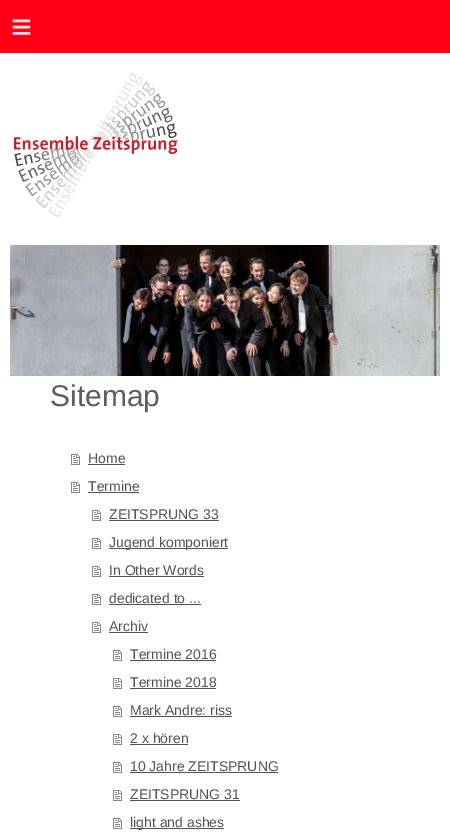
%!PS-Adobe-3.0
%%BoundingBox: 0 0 450 840
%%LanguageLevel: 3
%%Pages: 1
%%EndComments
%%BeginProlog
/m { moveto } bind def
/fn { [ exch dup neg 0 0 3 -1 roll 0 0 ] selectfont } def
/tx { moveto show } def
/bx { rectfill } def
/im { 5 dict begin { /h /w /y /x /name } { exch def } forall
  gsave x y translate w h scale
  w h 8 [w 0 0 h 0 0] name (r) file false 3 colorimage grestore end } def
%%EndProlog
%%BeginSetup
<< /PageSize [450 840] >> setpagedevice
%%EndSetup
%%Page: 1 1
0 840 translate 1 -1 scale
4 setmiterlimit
1 setgray
0 0 450 840 bx
1 0 0.078 setrgbcolor
0 0 450 53 bx
/LiberationSans-Regular 36 fn
1 0.902 0.91 setrgbcolor
11 39 m 10 0 (≡) ashow
(image0.raw) 14 72 164 146 im
(image1.raw) 10 245 430 131 im
/LiberationSans-Regular 30 fn
0.369 setgray
(Sitemap) 50 406 tx
(image2.raw) 71 454 9 11 im
/LiberationSans-Regular 14 fn
0.325 setgray
(Home) 88 463 tx
88 464 37 1 bx
(image2.raw) 71 482 9 11 im
(Termine) 88 491 tx
88 492 51 1 bx
(image2.raw) 92 510 9 11 im
(ZEITSPRUNG 33) 109 519 tx
109 520 110 1 bx
(image2.raw) 92 538 9 11 im
109 548 119 1 bx
(Jugend komponiert) 109 547 tx
(image2.raw) 92 566 9 11 im
(In Other Words) 109 575 tx
109 576 95 1 bx
(image2.raw) 92 594 9 11 im
(dedicated to ...) 109 603 tx
109 604 92 1 bx
(image2.raw) 92 622 9 11 im
(Archiv) 109 631 tx
109 632 39 1 bx
(image2.raw) 113 650 9 11 im
(Termine 2016) 130 659 tx
130 660 86 1 bx
(image2.raw) 113 678 9 11 im
(Termine 2018) 130 687 tx
130 688 86 1 bx
(image2.raw) 113 706 9 11 im
(Mark Andre: riss) 130 715 tx
130 716 102 1 bx
(image2.raw) 113 734 9 11 im
(2 x hören) 130 743 tx
130 744 58 1 bx
(image2.raw) 113 762 9 11 im
(10 Jahre ZEITSPRUNG) 130 771 tx
130 772 148 1 bx
(image2.raw) 113 790 9 11 im
(ZEITSPRUNG 31) 130 799 tx
130 800 110 1 bx
(image2.raw) 113 818 9 11 im
130 828 94 1 bx
(light and ashes) 130 827 tx
showpage
%%EOF
